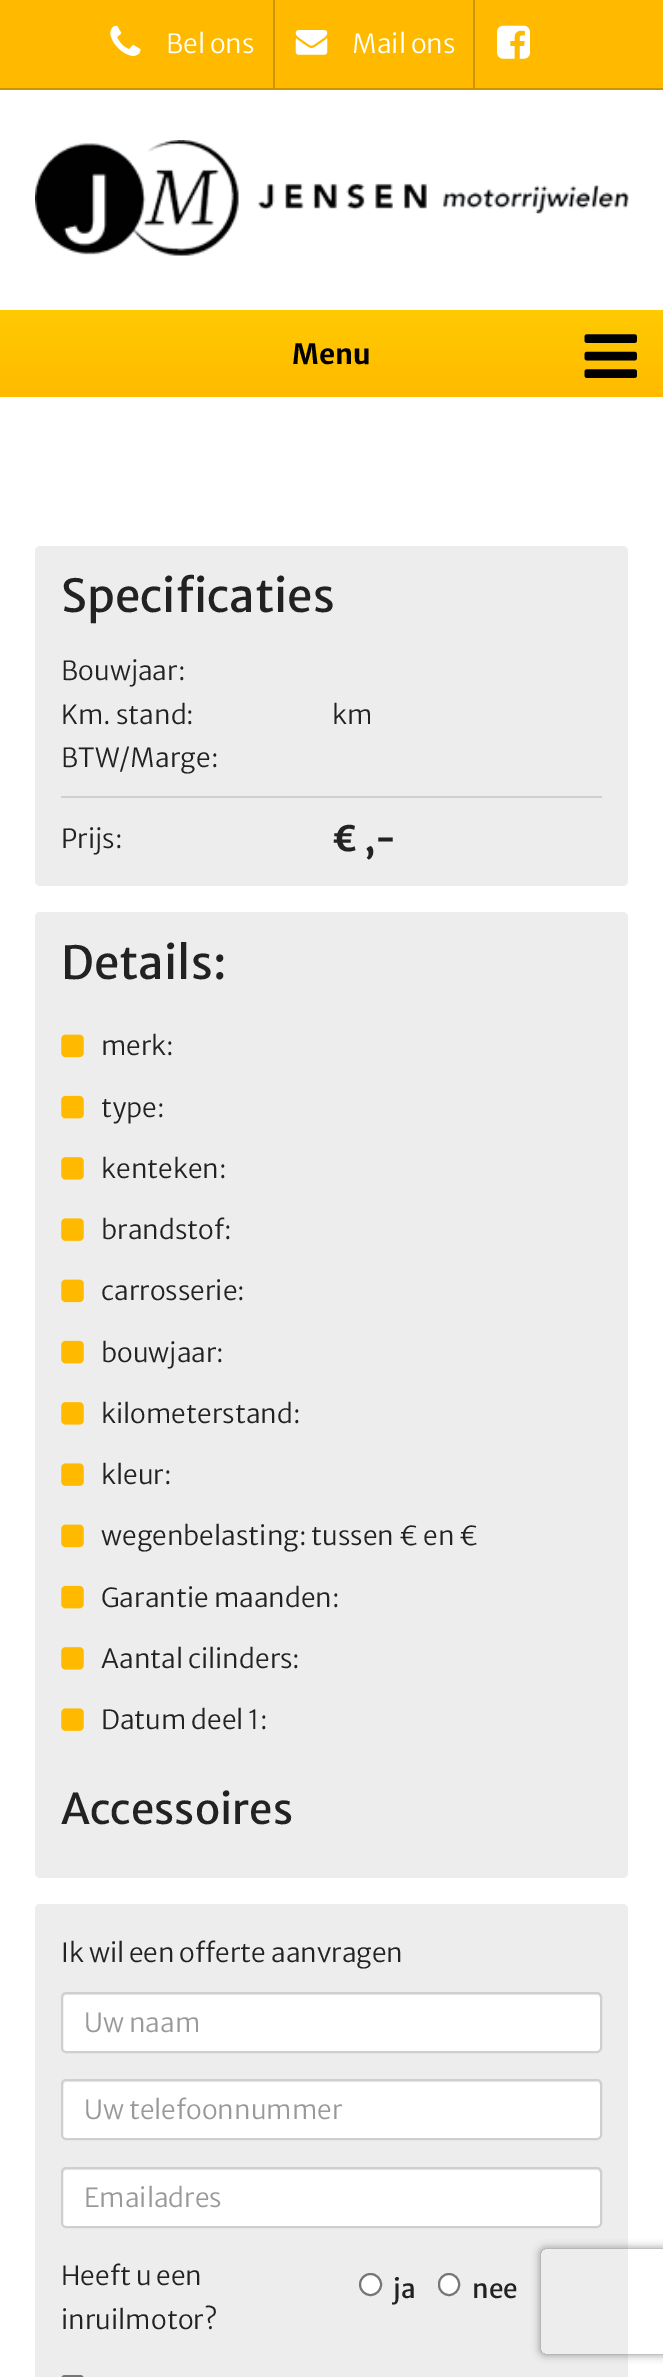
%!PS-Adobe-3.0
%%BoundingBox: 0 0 663 2377
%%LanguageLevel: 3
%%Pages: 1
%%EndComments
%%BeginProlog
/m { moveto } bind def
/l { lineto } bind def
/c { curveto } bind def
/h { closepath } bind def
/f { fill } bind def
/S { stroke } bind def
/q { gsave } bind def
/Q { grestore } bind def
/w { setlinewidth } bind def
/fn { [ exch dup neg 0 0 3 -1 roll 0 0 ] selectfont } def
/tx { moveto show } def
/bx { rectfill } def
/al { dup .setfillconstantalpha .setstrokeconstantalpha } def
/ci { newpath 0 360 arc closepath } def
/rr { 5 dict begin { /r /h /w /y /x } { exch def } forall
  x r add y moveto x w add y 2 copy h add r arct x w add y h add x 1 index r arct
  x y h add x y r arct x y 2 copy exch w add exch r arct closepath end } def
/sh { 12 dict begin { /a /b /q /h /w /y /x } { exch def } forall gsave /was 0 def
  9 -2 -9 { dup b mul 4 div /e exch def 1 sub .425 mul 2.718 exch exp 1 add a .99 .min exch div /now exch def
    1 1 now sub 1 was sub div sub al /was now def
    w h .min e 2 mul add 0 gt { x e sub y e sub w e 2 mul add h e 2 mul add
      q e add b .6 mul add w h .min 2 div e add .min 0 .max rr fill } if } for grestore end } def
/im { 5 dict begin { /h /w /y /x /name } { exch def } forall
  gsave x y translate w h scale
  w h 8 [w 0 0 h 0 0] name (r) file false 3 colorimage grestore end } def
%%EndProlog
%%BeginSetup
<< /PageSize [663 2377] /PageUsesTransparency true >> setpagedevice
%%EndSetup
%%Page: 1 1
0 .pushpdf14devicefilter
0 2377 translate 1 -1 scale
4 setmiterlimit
1 setgray
0 0 663 2377 bx
1 0.729 0 setrgbcolor
0 0 663 88 bx
0.8 0.584 0 setrgbcolor
0 88 663 2 bx
273 0 2 88 bx
(image0.raw) 110 25 31 31 im
/MerriweatherSans-Light 26.25 fn
1 setgray
(Bel ons) 166 53 tx
0.8 0.584 0 setrgbcolor
473 0 2 88 bx
(image1.raw) 295 30 33 25 im
1 setgray
(Mail ons) 352 53 tx
(image2.raw) 497 25 33 34 im
(image3.raw) 35 140 594 116 im
q 0 310 m 663 310 l 663 397 l 0 397 l h clip newpath
<< /ShadingType 2 /ColorSpace /DeviceRGB /Coords [332 310 332 397] /Extend [true true] /Function << /FunctionType 2 /Domain [0 1] /C0 [1 0.792 0] /C1 [1 0.729 0] /N 1 >> >> shfill Q
/MerriweatherSans-Bold 28 fn
0.004 setgray
(Menu) 292 364 tx
(image4.raw) 584 334 53 44 im
0.929 setgray
35 546 593 340 5 rr f
/MerriweatherSans-Regular 45.5 fn
0.133 setgray
(Specificaties) 61 612 tx
/MerriweatherSans-Light 26.25 fn
(Bouwjaar:) 61 680 tx
(Km. stand:) 61 724 tx
(km) 332 724 tx
(BTW/Marge:) 61 767 tx
0.812 setgray
61 796 541 2 bx
0.133 setgray
(Prijs:) 61 848 tx
/MerriweatherSans-Bold 35 fn
(€ ,-) 332 851 tx
0.929 setgray
35 912 593 966 5 rr f
/MerriweatherSans-Regular 45.5 fn
0.133 setgray
(Details:) 61 979 tx
(image5.raw) 61 1034 23 24 im
/MerriweatherSans-Light 26.25 fn
(merk:) 101 1055 tx
(image6.raw) 61 1095 23 24 im
(type:) 101 1117 tx
(image7.raw) 61 1157 23 23 im
(kenteken:) 101 1178 tx
(image8.raw) 61 1218 23 23 im
(brandstof:) 101 1239 tx
(image5.raw) 61 1279 23 24 im
(carrosserie:) 101 1300 tx
(image6.raw) 61 1340 23 24 im
(bouwjaar:) 101 1362 tx
(image7.raw) 61 1402 23 23 im
(kilometerstand:) 101 1423 tx
(image8.raw) 61 1463 23 23 im
(kleur:) 101 1484 tx
(image5.raw) 61 1524 23 24 im
(wegenbelasting: tussen € en €) 101 1545 tx
(image6.raw) 61 1585 23 24 im
(Garantie maanden:) 101 1607 tx
(image7.raw) 61 1647 23 23 im
(Aantal cilinders:) 101 1668 tx
(image8.raw) 61 1708 23 23 im
(Datum deel 1:) 101 1729 tx
/MerriweatherSans-Regular 42 fn
(Accessoires) 61 1824 tx
0.929 setgray
35 1904 593 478 5 rr f
/MerriweatherSans-Light 26.25 fn
0.133 setgray
(Ik wil een offerte aanvragen) 61 1962 tx
1 setgray
61 1992 541 61 5 rr f
0.925 setgray
66 1995 m 597 1995 l 599 1995 600 1997 600 1998 c 600 1997 l 600 1995 598 1993 596 1993 c 67 1993 l 65 1993 63 1995 63 1997 c 63 1998 l 63 1997 65 1995 66 1995 c h f
0.812 setgray
2 w
62 1993 539 59 4 rr S
0.6 setgray
(Uw naam) 84 2032 tx
1 setgray
61 2079 541 61 5 rr f
0.925 setgray
66 2082 m 597 2082 l 599 2082 600 2084 600 2086 c 600 2085 l 600 2083 598 2081 596 2081 c 67 2081 l 65 2081 63 2083 63 2085 c 63 2086 l 63 2084 65 2082 66 2082 c h f
0.812 setgray
62 2080 539 59 4 rr S
0.6 setgray
(Uw telefoonnummer) 84 2119 tx
1 setgray
61 2167 541 61 5 rr f
0.925 setgray
66 2170 m 597 2170 l 599 2170 600 2172 600 2174 c 600 2172 l 600 2170 598 2168 596 2168 c 67 2168 l 65 2168 63 2170 63 2172 c 63 2174 l 63 2172 65 2170 66 2170 c h f
0.812 setgray
62 2168 539 59 4 rr S
0.6 setgray
(Emailadres) 84 2207 tx
0.133 setgray
(Heeft u een) 61 2285 tx
(inruilmotor?) 61 2329 tx
1 setgray
370.5 2284.5 10.5 ci q f Q
0.463 setgray
S
/MerriweatherSans-Regular 26.25 fn
0.133 setgray
(ja) 393 2298 tx
1 setgray
439 2274 20 21 10 rr q f Q
0.463 setgray
S
0.133 setgray
(nee) 472 2298 tx
0.463 setgray
62 2376 21 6 3 rr S
q
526 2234 m 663 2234 l 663 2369 l 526 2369 l h 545 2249 m 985 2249 l 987 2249 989 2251 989 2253 c 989 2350 l 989 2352 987 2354 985 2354 c 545 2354 l 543 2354 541 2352 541 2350 c 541 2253 l 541 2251 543 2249 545 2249 c h eoclip newpath
0.502 setgray
541 2249 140 105 4 4.5 1 sh
Q
.poppdf14devicefilter showpage
%%EOF
